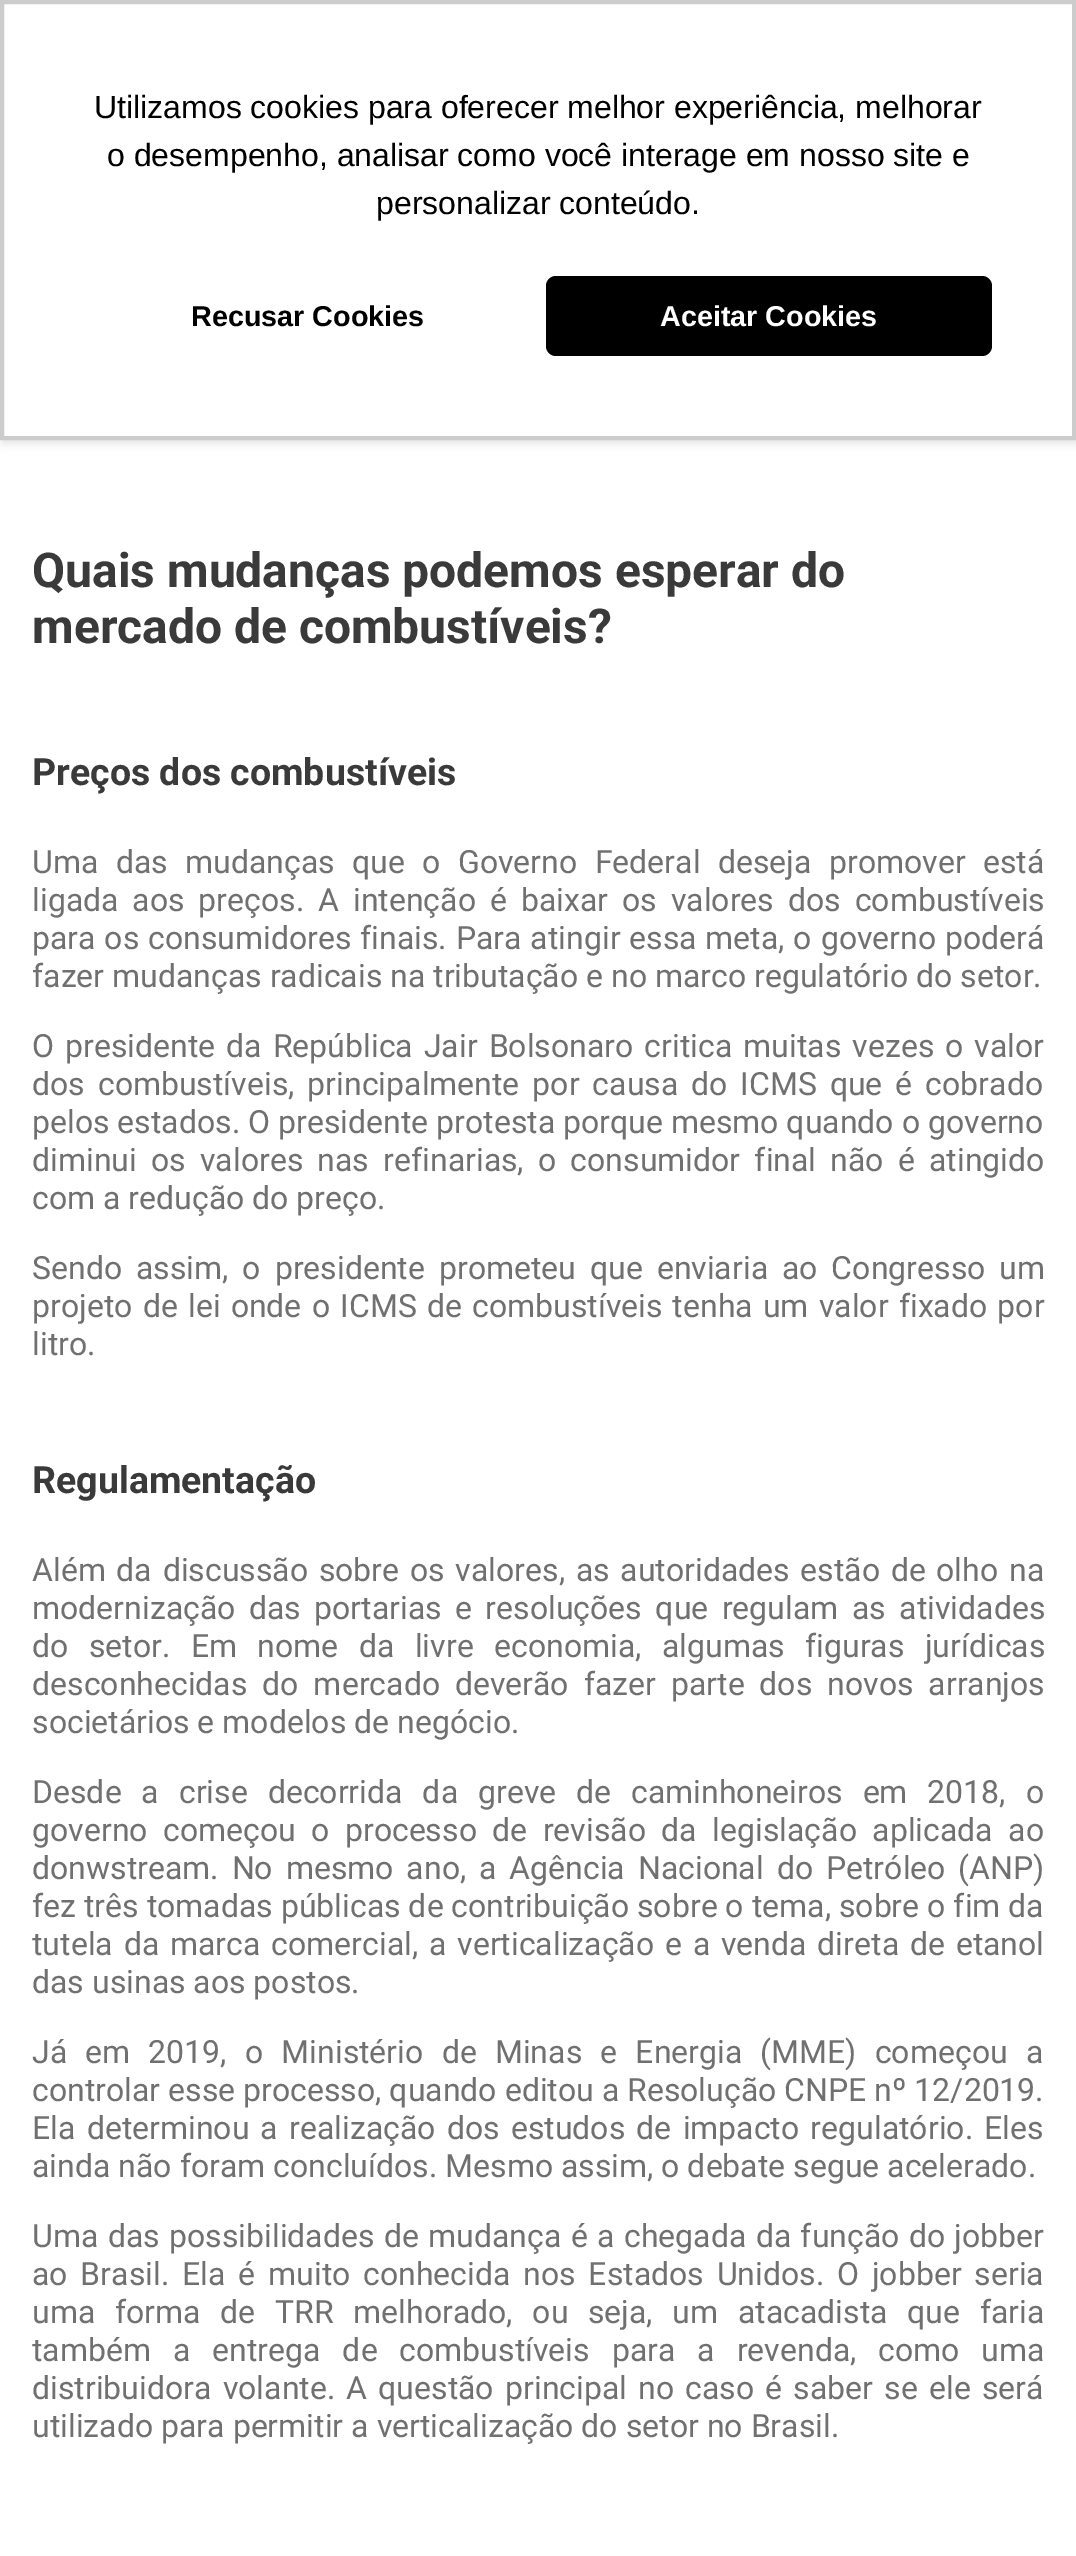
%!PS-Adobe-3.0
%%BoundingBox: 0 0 1076 2556
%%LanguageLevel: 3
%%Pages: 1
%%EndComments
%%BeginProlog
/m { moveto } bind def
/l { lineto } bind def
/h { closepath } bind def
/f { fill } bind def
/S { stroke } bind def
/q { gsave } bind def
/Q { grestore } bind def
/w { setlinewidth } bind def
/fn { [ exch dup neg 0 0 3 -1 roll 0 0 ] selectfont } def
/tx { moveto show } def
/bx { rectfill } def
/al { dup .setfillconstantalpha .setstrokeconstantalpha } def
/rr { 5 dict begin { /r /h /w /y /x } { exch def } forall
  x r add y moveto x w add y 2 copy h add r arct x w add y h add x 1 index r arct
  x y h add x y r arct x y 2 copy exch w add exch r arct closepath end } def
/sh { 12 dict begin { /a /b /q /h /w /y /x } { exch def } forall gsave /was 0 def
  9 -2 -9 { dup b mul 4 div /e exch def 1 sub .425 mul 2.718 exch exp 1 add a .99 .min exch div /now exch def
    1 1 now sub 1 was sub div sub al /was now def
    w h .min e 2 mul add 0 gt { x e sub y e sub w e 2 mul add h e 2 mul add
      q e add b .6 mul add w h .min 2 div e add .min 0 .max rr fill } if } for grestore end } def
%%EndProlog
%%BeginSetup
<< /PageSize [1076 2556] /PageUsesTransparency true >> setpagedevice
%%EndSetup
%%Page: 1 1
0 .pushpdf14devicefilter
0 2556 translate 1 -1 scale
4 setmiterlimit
1 setgray
0 0 1076 2556 bx
0 setgray
2 4 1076 440 0 4 0.1 sh
1 setgray
2 2 m 1074 2 l 1074 438 l 2 438 l h q f Q
0.8 setgray
4 w
S
/LiberationSans-Regular 32 fn
0 setgray
(Utilizamos cookies para oferecer melhor experiência, melhorar) 94 118 tx
(o desempenho, analisar como você interage em nosso site e) 107 166 tx
(personalizar conteúdo.) 376 214 tx
/LiberationSans-Bold 28.75 fn
(Recusar Cookies) 191 326 tx
546 276 446 80 10 rr f
1 setgray
(Aceitar Cookies) 660 326 tx
/Roboto-Bold 48 fn
0.231 0.227 0.227 setrgbcolor
(Quais mudanças podemos esperar do) 32 587 tx
(mercado de combustíveis?) 32 643 tx
/Roboto-Bold 37.5 fn
(Preços dos combustíveis) 32 785 tx
/Roboto-Regular 32 fn
0.439 setgray
32 873 m 9.5 0 32 (Uma das mudanças que o Governo Federal deseja promover está) widthshow
32 911 m 6 0 32 (ligada aos preços. A intenção é baixar os valores dos combustíveis) widthshow
32 949 m 0.9 0 32 (para os consumidores finais. Para atingir essa meta, o governo poderá) widthshow
(fazer mudanças radicais na tributação e no marco regulatório do setor.) 32 987 tx
32 1057 m 3.1 0 32 (O presidente da República Jair Bolsonaro critica muitas vezes o valor) widthshow
32 1095 m 5 0 32 (dos combustíveis, principalmente por causa do ICMS que é cobrado) widthshow
(pelos estados. O presidente protesta porque mesmo quando o governo) 32 1133 tx
32 1171 m 6.25 0 32 (diminui os valores nas refinarias, o consumidor final não é atingido) widthshow
(com a redução do preço.) 32 1209 tx
32 1279 m 6 0 32 (Sendo assim, o presidente prometeu que enviaria ao Congresso um) widthshow
32 1317 m 2.25 0 32 (projeto de lei onde o ICMS de combustíveis tenha um valor fixado por) widthshow
(litro.) 32 1355 tx
/Roboto-Bold 37.5 fn
0.231 0.227 0.227 setrgbcolor
(Regulamentação) 32 1493 tx
/Roboto-Regular 32 fn
0.439 setgray
32 1581 m 2.75 0 32 (Além da discussão sobre os valores, as autoridades estão de olho na) widthshow
32 1619 m 5.5 0 32 (modernização das portarias e resoluções que regulam as atividades) widthshow
32 1657 m 12.5 0 32 (do setor. Em nome da livre economia, algumas figuras jurídicas) widthshow
32 1695 m 7 0 32 (desconhecidas do mercado deverão fazer parte dos novos arranjos) widthshow
(societários e modelos de negócio.) 32 1733 tx
32 1803 m 12 0 32 (Desde a crise decorrida da greve de caminhoneiros em 2018, o) widthshow
32 1841 m 7.5 0 32 (governo começou o processo de revisão da legislação aplicada ao) widthshow
32 1879 m 5 0 32 (donwstream. No mesmo ano, a Agência Nacional do Petróleo \(ANP\)) widthshow
(fez três tomadas públicas de contribuição sobre o tema, sobre o fim da) 32 1917 tx
32 1955 m 2.9 0 32 (tutela da marca comercial, a verticalização e a venda direta de etanol) widthshow
(das usinas aos postos.) 32 1993 tx
32 2063 m 10.25 0 32 (Já em 2019, o Ministério de Minas e Energia \(MME\) começou a) widthshow
(controlar esse processo, quando editou a Resolução CNPE nº 12/2019.) 32 2101 tx
32 2139 m 3.25 0 32 (Ela determinou a realização dos estudos de impacto regulatório. Eles) widthshow
(ainda não foram concluídos. Mesmo assim, o debate segue acelerado.) 32 2177 tx
32 2247 m 1.5 0 32 (Uma das possibilidades de mudança é a chegada da função do jobber) widthshow
32 2285 m 4.9 0 32 (ao Brasil. Ela é muito conhecida nos Estados Unidos. O jobber seria) widthshow
32 2323 m 11.75 0 32 (uma forma de TRR melhorado, ou seja, um atacadista que faria) widthshow
32 2361 m 14 0 32 (também a entrega de combustíveis para a revenda, como uma) widthshow
32 2399 m 3.25 0 32 (distribuidora volante. A questão principal no caso é saber se ele será) widthshow
(utilizado para permitir a verticalização do setor no Brasil.) 32 2437 tx
.poppdf14devicefilter showpage
%%EOF
